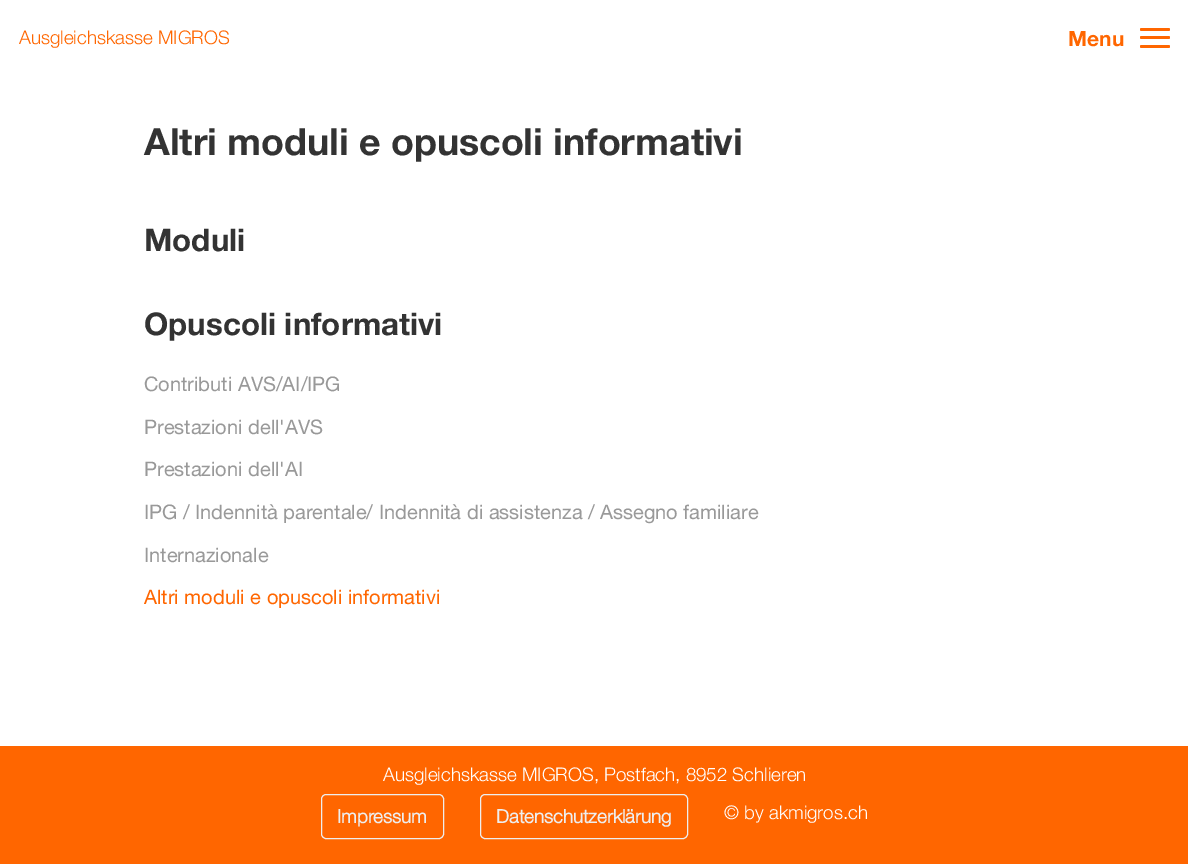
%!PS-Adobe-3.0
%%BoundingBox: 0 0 1188 864
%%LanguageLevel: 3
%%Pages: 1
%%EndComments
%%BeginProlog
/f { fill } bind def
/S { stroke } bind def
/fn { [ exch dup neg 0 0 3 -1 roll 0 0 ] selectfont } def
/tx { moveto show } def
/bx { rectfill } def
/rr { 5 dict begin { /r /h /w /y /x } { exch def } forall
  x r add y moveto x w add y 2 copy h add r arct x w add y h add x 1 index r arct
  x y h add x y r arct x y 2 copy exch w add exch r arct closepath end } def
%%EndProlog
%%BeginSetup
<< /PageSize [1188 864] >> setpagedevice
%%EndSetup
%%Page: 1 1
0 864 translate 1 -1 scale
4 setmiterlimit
1 setgray
0 0 1188 864 bx
/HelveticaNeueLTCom-Light 18.75 fn
1 0.4 0 setrgbcolor
(Ausgleichskasse MIGROS) 19 44 tx
/HelveticaNeueLTCom-Bold 21 fn
(Menu) 1068 46 tx
1140 36 30 3 1.5 rr f
1140 28 30 3 1.5 rr f
1140 45 30 3 1.5 rr f
/HelveticaNeueLTCom-Bold 37.5 fn
0.2 setgray
(Altri moduli e opuscoli informativi) 144 155 tx
/HelveticaNeueLTCom-Bold 31.25 fn
(Moduli) 144 251 tx
(Opuscoli informativi) 144 335 tx
/HelveticaNeueLTCom-Regular 20 fn
0.6 setgray
(Contributi AVS/AI/IPG) 144 391 tx
(Prestazioni dell'AVS) 144 434 tx
(Prestazioni dell'AI) 144 476 tx
(IPG / Indennità parentale/ Indennità di assistenza / Assegno familiare) 144 519 tx
(Internazionale) 144 562 tx
1 0.4 0 setrgbcolor
(Altri moduli e opuscoli informativi) 144 604 tx
0 746 1188 118 bx
/HelveticaNeueLTCom-Light 18.75 fn
1 setgray
(Ausgleichskasse MIGROS, Postfach, 8952 Schlieren) 383 781 tx
0.933 setgray
321.5 794.5 122 44 4.5 rr S
/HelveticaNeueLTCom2-Bold 18.75 fn
(Impressum) 337 823 tx
480.5 794.5 207 44 4.5 rr S
(Datenschutzerklärung) 496 823 tx
/HelveticaNeueLTCom-Light 18.75 fn
1 setgray
(© by akmigros.ch) 724 819 tx
showpage
%%EOF
